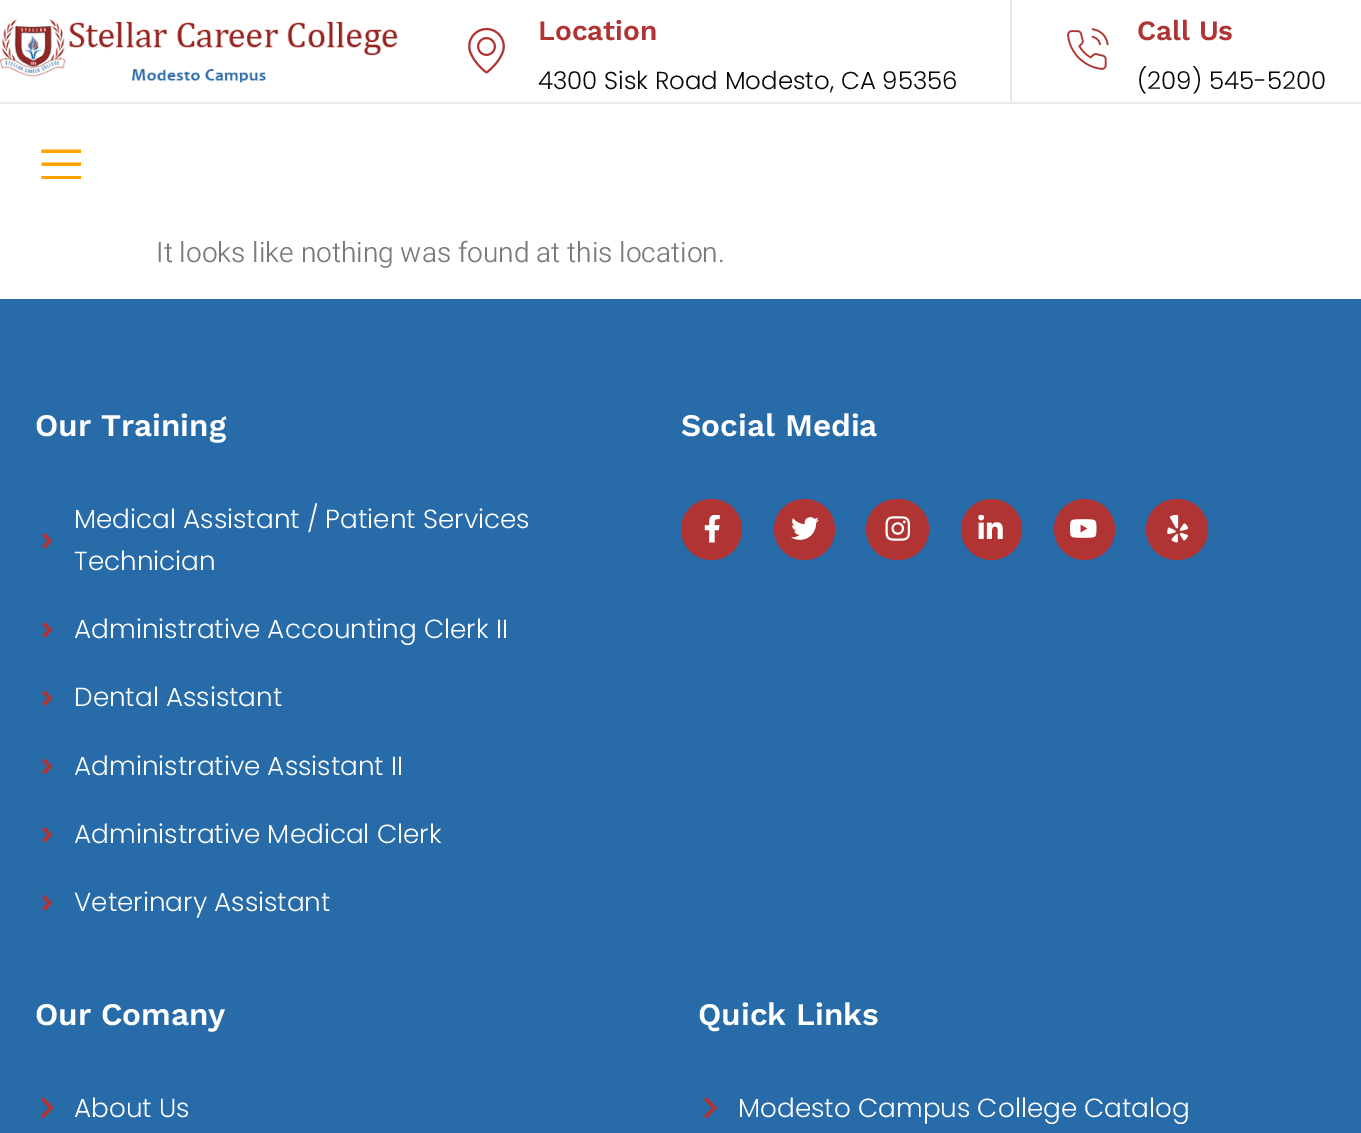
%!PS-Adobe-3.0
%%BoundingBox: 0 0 1361 1133
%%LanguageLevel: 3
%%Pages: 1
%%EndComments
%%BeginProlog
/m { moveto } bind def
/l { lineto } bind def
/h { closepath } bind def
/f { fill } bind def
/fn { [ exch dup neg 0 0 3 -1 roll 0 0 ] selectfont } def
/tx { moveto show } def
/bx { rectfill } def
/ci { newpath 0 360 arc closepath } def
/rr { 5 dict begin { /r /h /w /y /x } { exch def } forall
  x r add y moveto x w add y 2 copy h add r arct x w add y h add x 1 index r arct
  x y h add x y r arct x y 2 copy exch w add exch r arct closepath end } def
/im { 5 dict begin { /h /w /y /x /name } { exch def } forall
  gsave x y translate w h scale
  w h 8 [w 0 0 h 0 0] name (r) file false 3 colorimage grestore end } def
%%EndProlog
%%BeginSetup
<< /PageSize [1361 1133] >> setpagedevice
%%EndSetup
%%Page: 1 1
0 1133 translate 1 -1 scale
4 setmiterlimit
1 setgray
0 0 1361 1133 bx
0.918 setgray
0 102 1361 2 bx
(image0.raw) 0 19 398 64 im
(image1.raw) 468 27 37 47 im
/WorkSans-SemiBold 28 fn
0.69 0.204 0.204 setrgbcolor
(Location) 538 40 tx
/Poppins-Light 24.5 fn
0.027 setgray
(4300 Sisk Road Modesto, CA 95356) 538 89 tx
0.918 setgray
1010 0 2 102 bx
(image2.raw) 1067 28 42 42 im
/WorkSans-SemiBold 28 fn
0.69 0.204 0.204 setrgbcolor
(Call Us) 1137 40 tx
/Poppins-Light 24.5 fn
0.027 setgray
(\(209\) 545-5200) 1137 89 tx
1 0.631 0 setrgbcolor
41.5 149.5 m 41.5 153 l 81 153 l 81 149.5 l h 41.5 162.5 m 41.5 166 l 81 166 l 81 162.5 l h 41.5 176 m 41.5 179 l 81 179 l 81 176 l h f
/Heebo-Light 28 fn
0.478 setgray
(It looks like nothing was found at this location.) 156 262 tx
0.157 0.42 0.663 setrgbcolor
0 299 1361 834 bx
/WorkSans-SemiBold 31.5 fn
1 setgray
(Our Training) 35 436 tx
(image3.raw) 42 533 11 16 im
/Poppins-Light 26.25 fn
(Medical Assistant / Patient Services) 74 528 tx
(Technician) 74 570 tx
(image4.raw) 42 622 11 16 im
(Administrative Accounting Clerk II) 74 638 tx
(image5.raw) 42 690 11 16 im
(Dental Assistant) 74 706 tx
(image6.raw) 42 758 11 17 im
(Administrative Assistant II) 74 775 tx
(image3.raw) 42 827 11 16 im
(Administrative Medical Clerk) 74 843 tx
(image4.raw) 42 895 11 16 im
(Veterinary Assistant) 74 911 tx
/WorkSans-SemiBold 31.5 fn
(Social Media) 681 436 tx
0.69 0.204 0.204 setrgbcolor
711.5 529.5 30.5 ci f
(image7.raw) 704 515 16 28 im
804.5 529.5 30.5 ci f
(image8.raw) 791 517 28 23 im
866 499 63 61 30.5 rr f
(image9.raw) 885 516 25 25 im
991.5 529.5 30.5 ci f
(image10.raw) 978 515 25 24 im
1084.5 529.5 30.5 ci f
(image11.raw) 1070 519 27 19 im
1146 499 62 61 30.5 rr f
(image12.raw) 1167 515 22 28 im
1 setgray
(Our Comany) 35 1025 tx
(image13.raw) 40 1097 14 22 im
/Poppins-Light 26.25 fn
(About Us) 74 1117 tx
/WorkSans-SemiBold 31.5 fn
(Quick Links) 698 1025 tx
(image14.raw) 704 1097 13 22 im
/Poppins-Light 26.25 fn
(Modesto Campus College Catalog) 738 1117 tx
showpage
%%EOF
